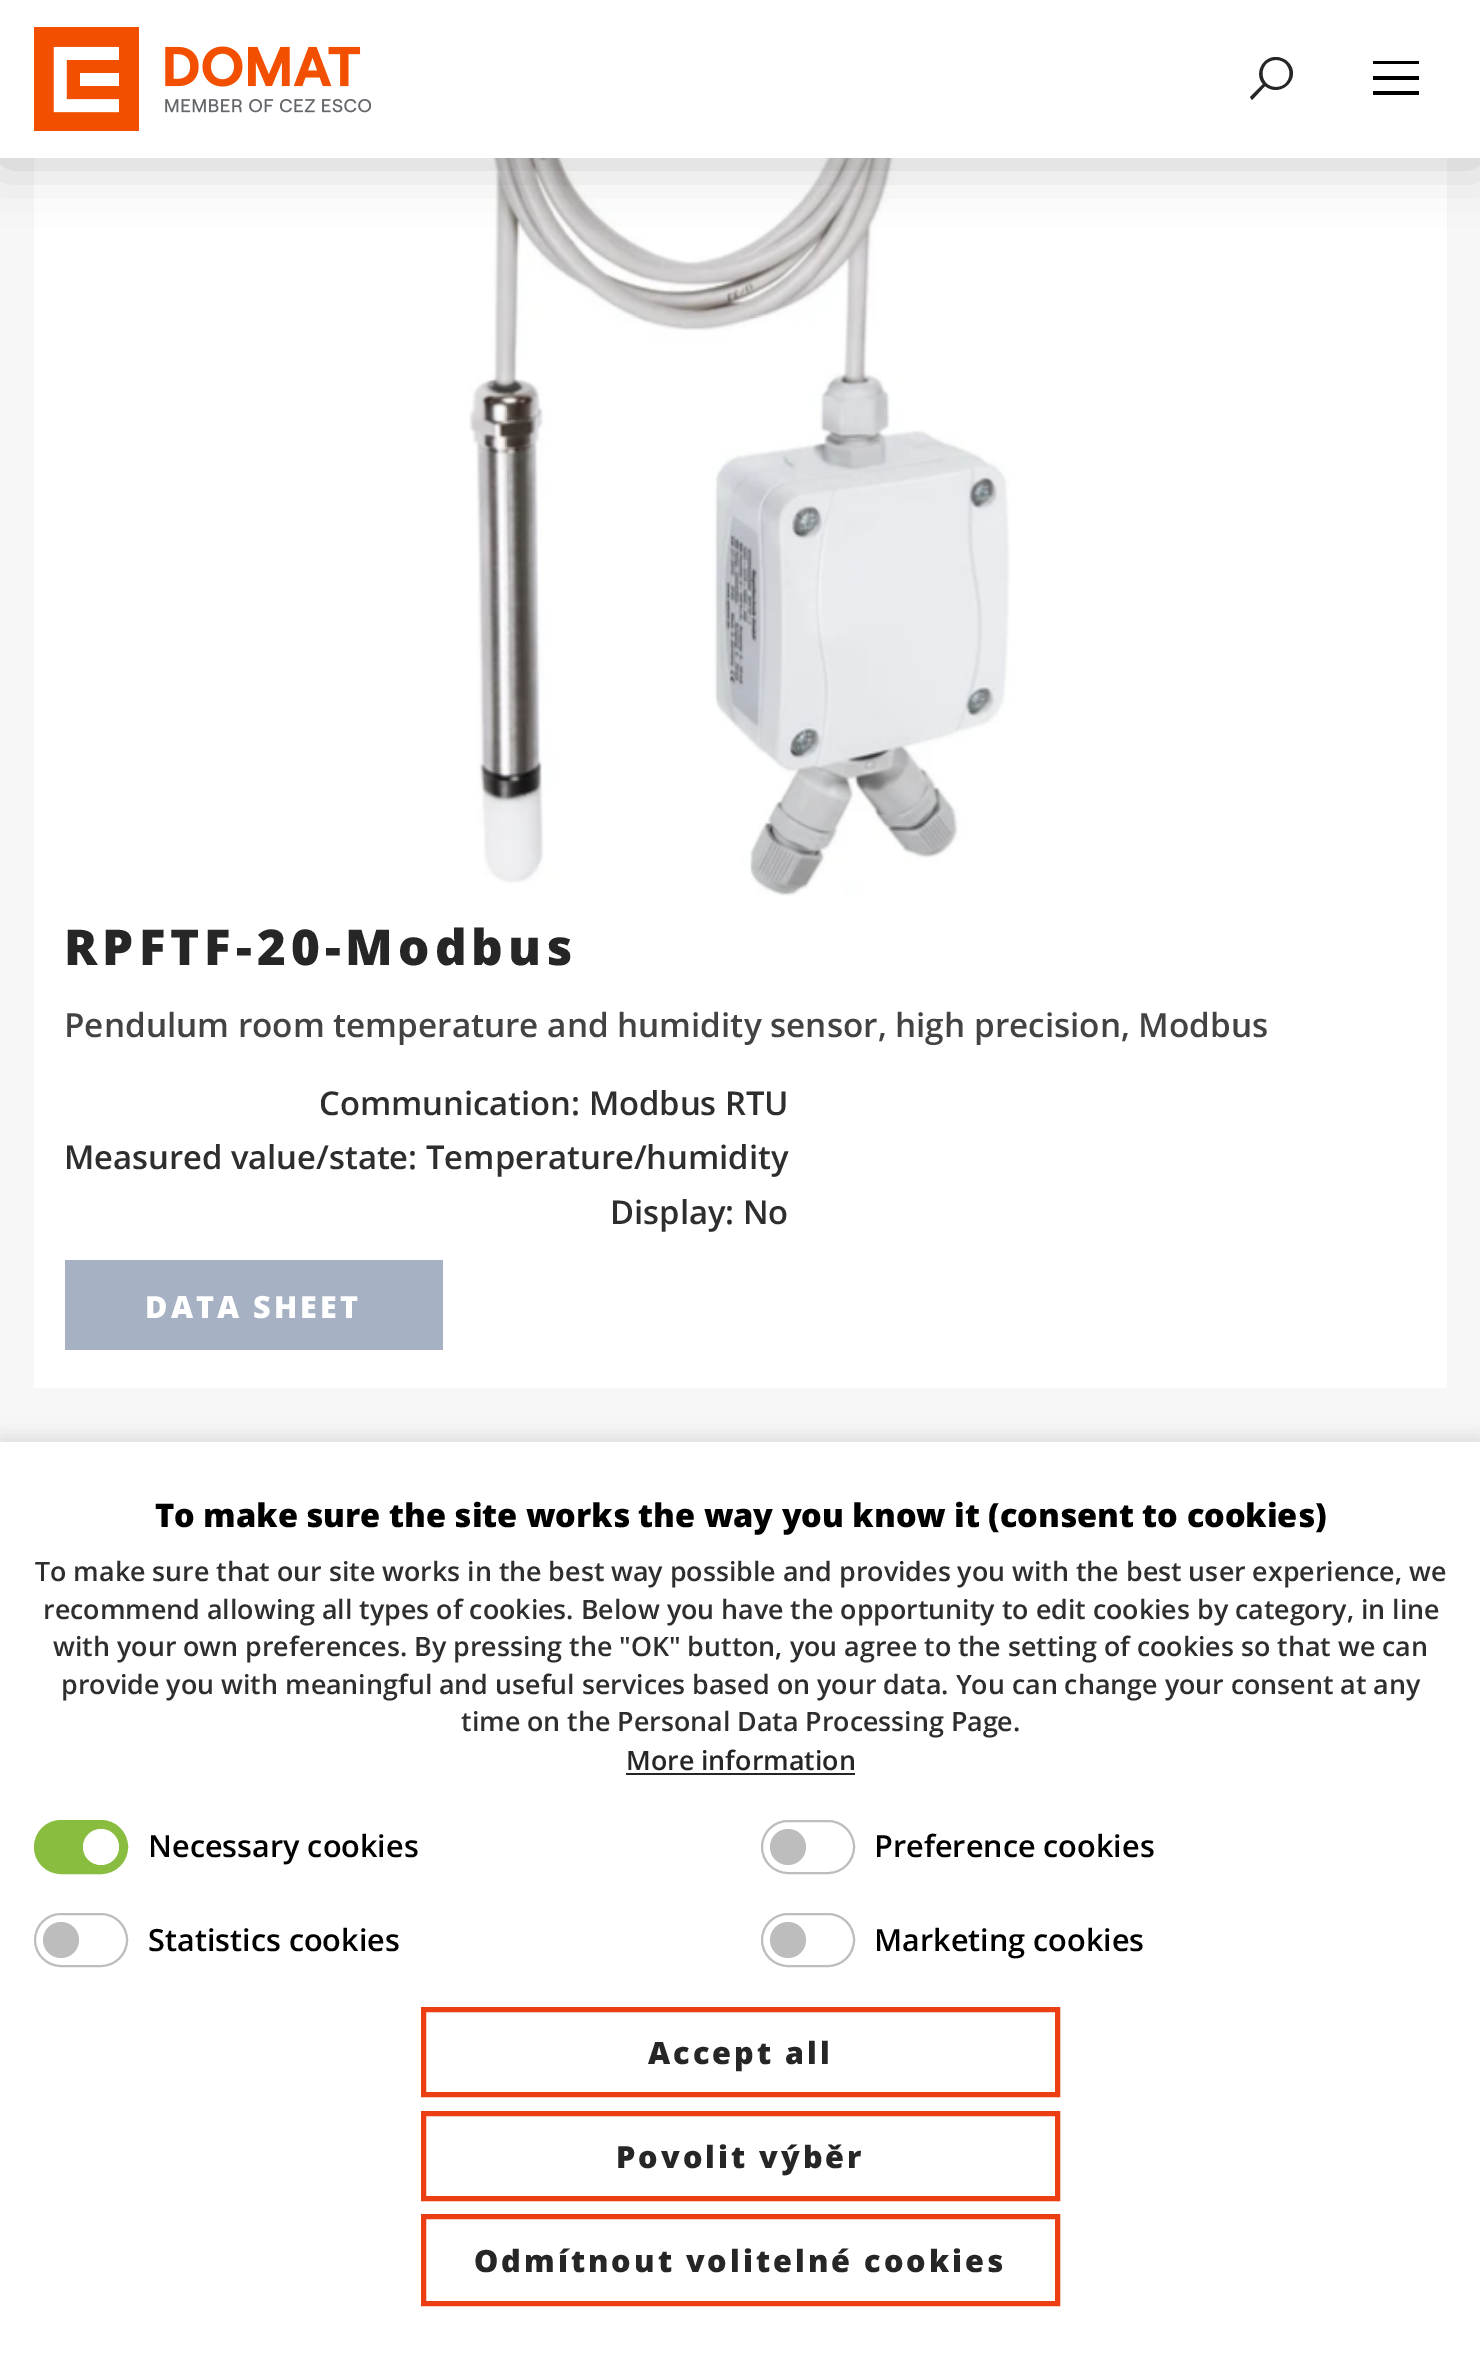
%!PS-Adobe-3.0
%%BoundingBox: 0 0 1480 2357
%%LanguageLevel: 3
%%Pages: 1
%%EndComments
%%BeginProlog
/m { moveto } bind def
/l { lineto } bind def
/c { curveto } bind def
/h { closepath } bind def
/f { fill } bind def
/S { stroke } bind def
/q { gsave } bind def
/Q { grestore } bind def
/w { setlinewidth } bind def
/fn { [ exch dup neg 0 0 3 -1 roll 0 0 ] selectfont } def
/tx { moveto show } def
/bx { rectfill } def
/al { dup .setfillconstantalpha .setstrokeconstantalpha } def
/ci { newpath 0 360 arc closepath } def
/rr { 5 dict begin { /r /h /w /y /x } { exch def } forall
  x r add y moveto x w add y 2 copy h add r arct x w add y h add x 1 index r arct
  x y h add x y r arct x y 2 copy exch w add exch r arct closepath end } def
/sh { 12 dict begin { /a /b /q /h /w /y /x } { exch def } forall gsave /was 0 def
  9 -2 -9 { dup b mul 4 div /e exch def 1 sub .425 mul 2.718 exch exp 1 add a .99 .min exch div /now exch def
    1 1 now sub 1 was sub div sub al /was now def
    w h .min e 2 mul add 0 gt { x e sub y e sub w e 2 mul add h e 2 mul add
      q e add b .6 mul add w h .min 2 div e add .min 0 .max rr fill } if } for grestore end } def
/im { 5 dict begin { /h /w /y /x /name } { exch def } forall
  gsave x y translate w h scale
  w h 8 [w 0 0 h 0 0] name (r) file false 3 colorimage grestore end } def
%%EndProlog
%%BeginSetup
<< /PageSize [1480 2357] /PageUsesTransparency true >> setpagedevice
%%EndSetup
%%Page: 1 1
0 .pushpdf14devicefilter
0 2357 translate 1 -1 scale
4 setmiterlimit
0.969 setgray
0 0 1480 2357 bx
1 setgray
34 158 1413 1230 bx
(image1.raw) 469 158 541 738 im
0 setgray
0 7 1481 157 0 28 0.2 sh
1 setgray
0 0 1480 158 bx
(image0.raw) 34 27 337 104 im
0.149 setgray
1276 57 m 1262 57 1254 74 1263 84 c 1250 97 l 1252 100 l 1265 86 l 1281 99 1303 77 1288 62 c 1285 59 1280 57 1276 57 c h 1276 60 m 1294 60 1294 87 1276 87 c 1258 87 1258 60 1276 60 c h f
0 setgray
1373 61 m 1373 64 l 1419 64 l 1419 61 l h 1373 76 m 1373 80 l 1419 80 l 1419 76 l h 1373 91 m 1373 95 l 1419 95 l 1419 91 l h f
/OpenSans-ExtraBold 49.4 fn
0.149 setgray
64 965 m 5 0 (RPFTF-20-Modbus) ashow
/OpenSans-SemiBold 33.3 fn
0.263 setgray
(Pendulum room temperature and humidity sensor, high precision, Modbus) 64 1037 tx
/OpenSans-SemiBold 32.75 fn
0.18 setgray
(Communication: Modbus RTU) 319 1115 tx
(Measured value/state: Temperature/humidity) 64 1169 tx
(Display: No) 610 1224 tx
0.651 0.698 0.769 setrgbcolor
65 1260 378 90 bx
/OpenSans-ExtraBold 30.6 fn
1 setgray
145 1318 m 3.05 0 (DATA SHEET) ashow
0 setgray
0 1436 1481 915 0 9 0.1 sh
1 setgray
0 1442 1480 915 bx
/OpenSans-ExtraBold 32.5 fn
0 setgray
(To make sure the site works the way you know it \(consent to cookies\)) 155 1527 tx
/OpenSans-SemiBold 26.78 fn
0.18 setgray
(To make sure that our site works in the best way possible and provides you with the best user experience, we) 35 1581 tx
(recommend allowing all types of cookies. Below you have the opportunity to edit cookies by category, in line) 43 1619 tx
(with your own preferences. By pressing the "OK" button, you agree to the setting of cookies so that we can) 53 1656 tx
(provide you with meaningful and useful services based on your data. You can change your consent at any) 61 1694 tx
(time on the Personal Data Processing Page.) 461 1731 tx
0.149 setgray
(More information) 626 1770 tx
626 1773 229 2 bx
0.537 0.741 0.247 setrgbcolor
35 1821 92 52 26 rr q f Q
2 w
S
1 setgray
101 1847 18 ci f
/OpenSans-SemiBold 30.6 fn
0 setgray
(Necessary cookies) 148 1857 tx
0.741 setgray
762 1821 92 52 26 rr S
788 1847 18 ci f
0 setgray
(Preference cookies) 874 1857 tx
0.741 setgray
35 1914 92 52 26 rr S
61 1940 18 ci f
0 setgray
(Statistics cookies) 148 1951 tx
0.741 setgray
762 1914 92 52 26 rr S
788 1940 18 ci f
0 setgray
(Marketing cookies) 874 1951 tx
0.922 0.243 0.075 setrgbcolor
5 w
423.5 2009.5 634 85 rectstroke
/OpenSans-ExtraBold 30.6 fn
0.149 setgray
648 2064 m 3.05 0 (Accept all) ashow
0.922 0.243 0.075 setrgbcolor
423.5 2113.5 634 85 rectstroke
0.149 setgray
616 2168 m 3.05 0 (Povolit výběr) ashow
0.922 0.243 0.075 setrgbcolor
423.5 2216.5 634 87 rectstroke
0.149 setgray
474 2272 m 3.05 0 (Odmítnout volitelné cookies) ashow
.poppdf14devicefilter showpage
%%EOF
